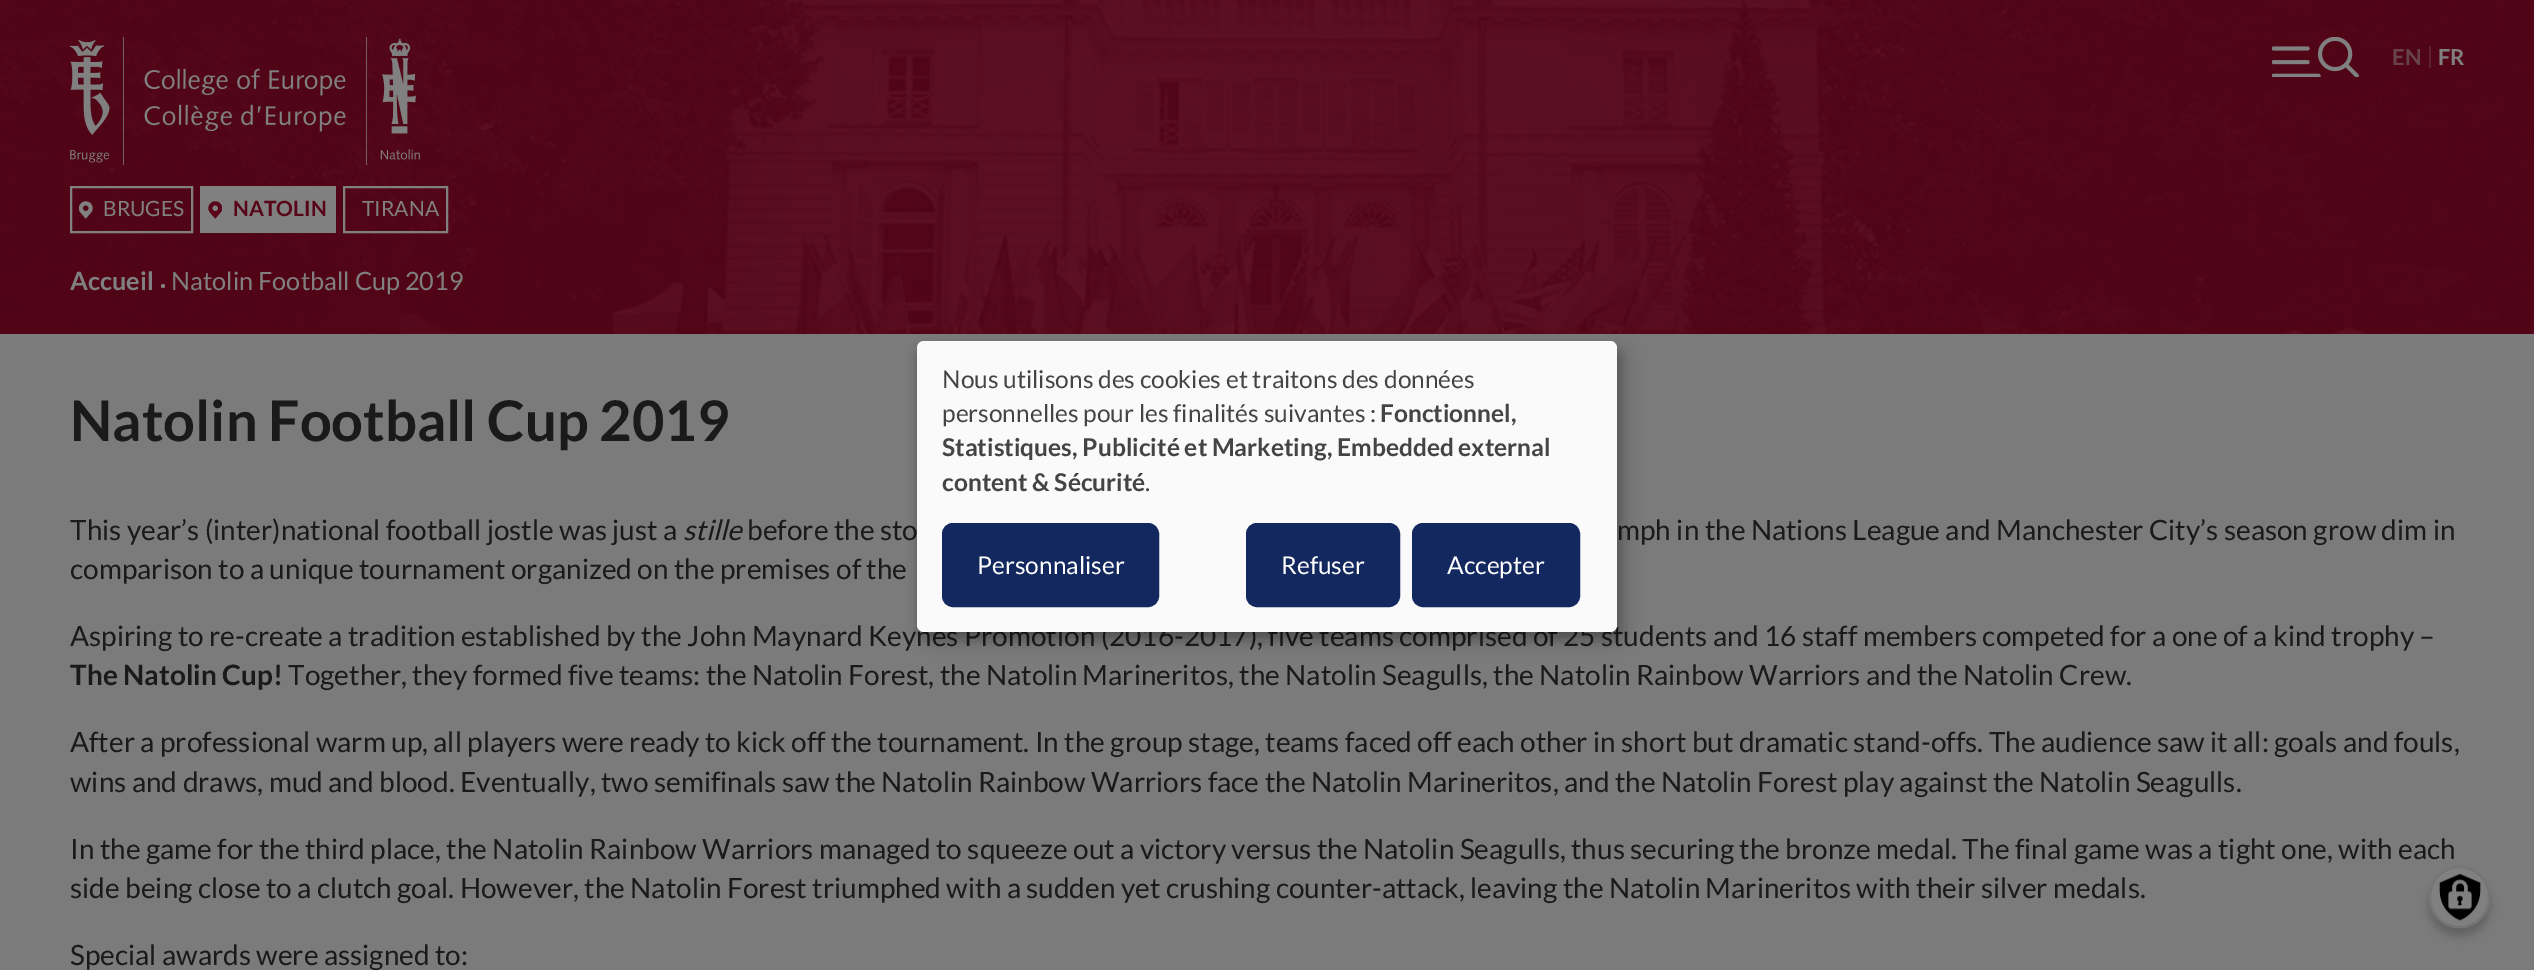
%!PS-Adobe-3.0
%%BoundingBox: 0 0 2534 970
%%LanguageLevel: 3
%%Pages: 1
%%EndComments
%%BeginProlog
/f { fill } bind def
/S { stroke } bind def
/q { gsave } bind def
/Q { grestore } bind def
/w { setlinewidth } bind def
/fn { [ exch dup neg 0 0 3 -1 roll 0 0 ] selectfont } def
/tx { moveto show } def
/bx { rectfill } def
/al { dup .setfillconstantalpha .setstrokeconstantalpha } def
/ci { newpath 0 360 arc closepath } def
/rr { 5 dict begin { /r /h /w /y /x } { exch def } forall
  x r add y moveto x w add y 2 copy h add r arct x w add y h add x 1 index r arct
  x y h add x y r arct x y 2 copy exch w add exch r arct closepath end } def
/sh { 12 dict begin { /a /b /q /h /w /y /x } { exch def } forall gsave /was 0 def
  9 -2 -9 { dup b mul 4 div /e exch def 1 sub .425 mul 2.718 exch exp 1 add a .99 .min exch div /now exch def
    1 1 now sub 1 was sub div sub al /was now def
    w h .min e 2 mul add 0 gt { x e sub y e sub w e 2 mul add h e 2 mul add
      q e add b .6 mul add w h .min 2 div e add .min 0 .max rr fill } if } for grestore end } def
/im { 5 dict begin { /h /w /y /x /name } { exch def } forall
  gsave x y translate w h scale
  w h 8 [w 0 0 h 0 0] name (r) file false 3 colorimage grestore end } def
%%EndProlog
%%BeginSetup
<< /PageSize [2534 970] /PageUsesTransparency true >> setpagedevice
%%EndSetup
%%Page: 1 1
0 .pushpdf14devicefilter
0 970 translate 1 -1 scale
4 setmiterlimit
0.482 setgray
0 0 2534 970 bx
0.349 0.02 0.098 setrgbcolor
0 0 2534 334 bx
(image1.raw) 0 0 2534 334 im
(image0.raw) 2272 37 87 40 im
/Lato-Bold 22 fn
0.408 0.259 0.294 setrgbcolor
(EN) 2392 65 tx
0.361 0.137 0.192 setrgbcolor
2429 46 2 22 bx
0.502 setgray
(FR) 2438 65 tx
(image2.raw) 70 37 350 128 im
2 w
71 187 121 45 rectstroke
(image3.raw) 79 201 14 18 im
/Lato-Regular 21 fn
(BRUGES) 103 216 tx
200 186 136 47 bx
(image4.raw) 208 201 14 18 im
/Lato-Bold 21 fn
0.349 0.02 0.098 setrgbcolor
(NATOLIN) 233 216 tx
0.502 setgray
344 187 103 45 rectstroke
/Lato-Regular 21 fn
(TIRANA) 362 216 tx
/Lato-Bold 25.25 fn
(Accueil) 70 290 tx
163 286 2 ci f
/Lato-Regular 25.25 fn
(Natolin Football Cup 2019) 171 290 tx
/Lato-Bold 56 fn
0.102 setgray
(Natolin Football Cup 2019) 70 441 tx
/Lato-Regular 28 fn
(This year’s \(inter\)national football jostle was just a) 70 540 tx
/Lato-Italic 28 fn
(stille) 683 540 tx
/Lato-Regular 28 fn
(before the sto) 747 540 tx
(mph in the Nations League and Manchester City’s season grow dim in) 1617 540 tx
(comparison to a unique tournament organized on the premises of the) 70 579 tx
(Aspiring to re-create a tradition established by the John Maynard Keynes Promotion \(2016-2017\), five teams comprised of 25 students and 16 staff members competed for a one of a kind trophy –) 70 646 tx
/Lato-Bold 28 fn
(The Natolin Cup!) 70 685 tx
/Lato-Regular 28 fn
(Together, they formed five teams: the Natolin Forest, the Natolin Marineritos, the Natolin Seagulls, the Natolin Rainbow Warriors and the Natolin Crew.) 288 685 tx
(After a professional warm up, all players were ready to kick off the tournament. In the group stage, teams faced off each other in short but dramatic stand-offs. The audience saw it all: goals and fouls,) 70 752 tx
(wins and draws, mud and blood. Eventually, two semifinals saw the Natolin Rainbow Warriors face the Natolin Marineritos, and the Natolin Forest play against the Natolin Seagulls.) 70 792 tx
(In the game for the third place, the Natolin Rainbow Warriors managed to squeeze out a victory versus the Natolin Seagulls, thus securing the bronze medal. The final game was a tight one, with each) 70 859 tx
(side being close to a clutch goal. However, the Natolin Forest triumphed with a sudden yet crushing counter-attack, leaving the Natolin Marineritos with their silver medals.) 70 898 tx
(Special awards were assigned to:) 70 965 tx
0 setgray
926 350 700 291 7 9 0.19 sh
917 348 700 291 7 5 0.2 sh
0.98 setgray
917 341 700 291 7 rr f
/Lato-Regular 24.5 fn
0.267 setgray
(Nous utilisons des cookies et traitons des données) 942 388 tx
(personnelles pour les finalités suivantes :) 942 422 tx
/Lato-Bold 24.5 fn
(Fonctionnel,) 1380 422 tx
(Statistiques, Publicité et Marketing, Embedded external) 942 456 tx
(content & Sécurité) 942 491 tx
/Lato-Regular 24.5 fn
(.) 1145 491 tx
0.071 0.157 0.373 setrgbcolor
944.5 525.5 212 79 8.5 rr q f Q
5 w
S
1 setgray
(Personnaliser) 977 574 tx
0.071 0.157 0.373 setrgbcolor
1248.5 525.5 149 79 8.5 rr q f Q
S
1 setgray
(Refuser) 1281 574 tx
0.071 0.157 0.373 setrgbcolor
1414.5 525.5 163 79 8.5 rr q f Q
S
1 setgray
(Accepter) 1447 574 tx
0 setgray
2429 875 61 61 30.5 4.5 0.2 sh
0.502 setgray
2429 866 61 62 30.5 rr f
(image5.raw) 2439 873 42 48 im
0.459 setgray
2 w
2430 867 59 60 29.5 rr S
.poppdf14devicefilter showpage
%%EOF
